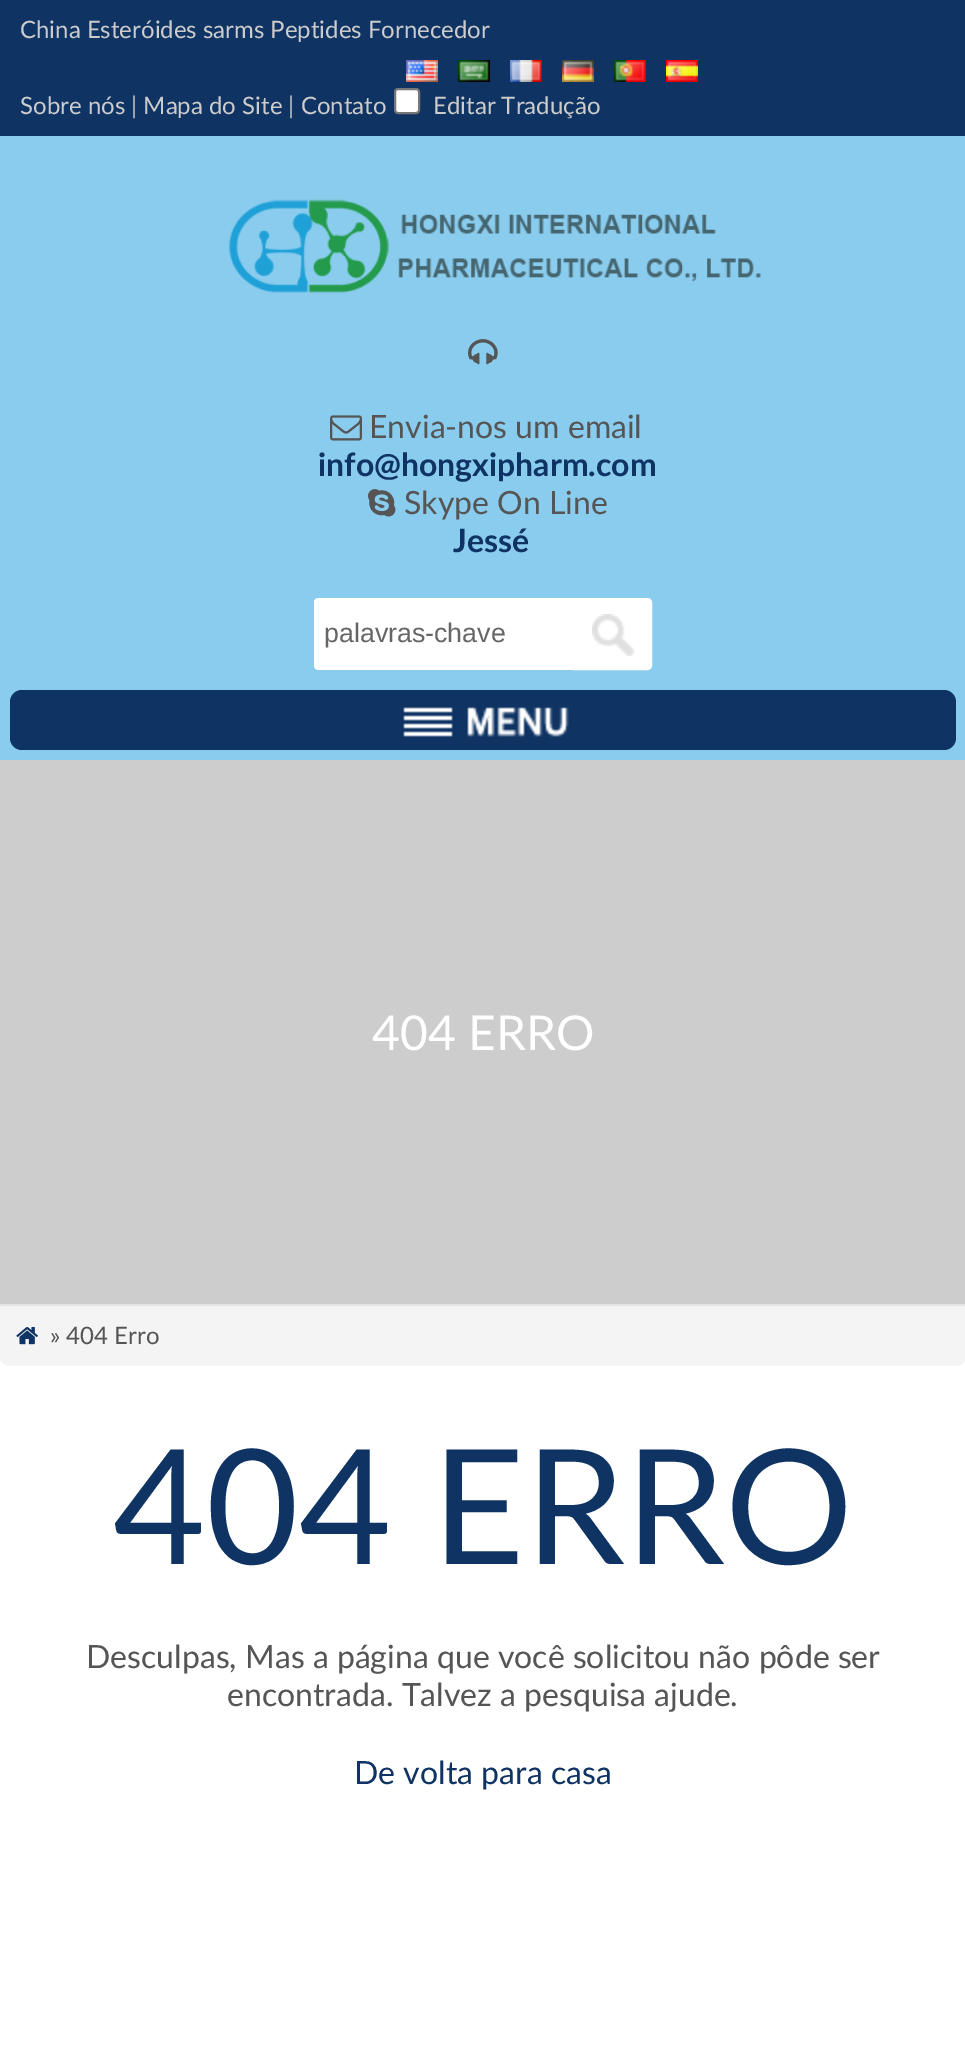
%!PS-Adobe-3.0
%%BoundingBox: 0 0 965 2062
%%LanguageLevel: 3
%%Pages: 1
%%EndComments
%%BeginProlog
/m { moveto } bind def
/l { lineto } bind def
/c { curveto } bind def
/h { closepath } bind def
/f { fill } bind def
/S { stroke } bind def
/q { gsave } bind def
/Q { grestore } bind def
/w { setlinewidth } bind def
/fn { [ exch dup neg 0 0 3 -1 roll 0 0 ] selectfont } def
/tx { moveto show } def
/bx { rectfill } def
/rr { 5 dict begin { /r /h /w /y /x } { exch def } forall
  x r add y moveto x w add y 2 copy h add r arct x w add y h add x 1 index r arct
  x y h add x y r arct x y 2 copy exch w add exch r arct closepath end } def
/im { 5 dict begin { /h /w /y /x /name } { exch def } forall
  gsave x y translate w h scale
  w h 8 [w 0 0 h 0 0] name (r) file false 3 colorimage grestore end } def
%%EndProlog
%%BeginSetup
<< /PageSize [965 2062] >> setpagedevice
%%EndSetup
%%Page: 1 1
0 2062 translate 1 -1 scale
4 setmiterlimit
1 setgray
0 0 965 2062 bx
0.059 0.204 0.388 setrgbcolor
0 0 965 136 bx
/Lato-Regular 24 fn
0.8 setgray
(China Esteróides sarms Peptides Fornecedor) 20 38 tx
(Sobre nós | Mapa do Site | Contato) 20 114 tx
(image0.raw) 406 60 32 22 im
(image1.raw) 458 60 32 22 im
(image2.raw) 510 60 32 22 im
(image3.raw) 562 60 32 22 im
(image4.raw) 614 60 32 22 im
(image5.raw) 666 60 32 22 im
1 setgray
395 89 24 24 3 rr q f Q
0.463 setgray
2 w
S
0.8 setgray
(Editar Tradução) 433 114 tx
0.541 0.8 0.933 setrgbcolor
0 136 965 624 bx
(image6.raw) 228 199 533 94 im
(image7.raw) 468 339 30 26 im
(image8.raw) 330 415 32 26 im
/Lato-Regular 32 fn
0.333 setgray
(Envia-nos um email) 369 438 tx
/Lato-Bold 32 fn
0.059 0.204 0.388 setrgbcolor
(info@hongxipharm.com) 318 476 tx
(image9.raw) 368 489 28 28 im
/Lato-Regular 32 fn
0.333 setgray
(Skype On Line) 404 514 tx
/Lato-Bold 32 fn
0.059 0.204 0.388 setrgbcolor
(Jessé) 453 552 tx
1 setgray
319 598 m 572 598 l 572 670 l 319 670 l 316 670 314 668 314 665 c 314 603 l 314 600 316 598 319 598 c h f
319 598 m 572 598 l 572 670 l 319 670 l 316 670 314 668 314 665 c 314 603 l 314 600 316 598 319 598 c h 319 600 m 572 600 l 572 668 l 319 668 l 317 668 316 667 316 665 c 316 603 l 316 601 317 600 319 600 c h eofill
/LiberationSans-Regular 26.75 fn
0.4 setgray
(palavras-chave) 324 642 tx
1 setgray
572 598 m 647 598 l 650 598 652 600 652 603 c 652 665 l 652 668 650 670 647 670 c 572 670 l h f
(image10.raw) 592 614 42 42 im
573 599 m 647 599 l 649 599 651 601 651 603 c 651 665 l 651 667 649 669 647 669 c 573 669 l h S
0.059 0.204 0.388 setrgbcolor
10 690 946 60 12 rr f
(image11.raw) 403 707 166 30 im
0.898 setgray
0 1304 965 2 bx
0.804 setgray
0 760 965 544 bx
/Lato-Regular 48 fn
1 setgray
(404 ERRO) 372 1050 tx
0.957 setgray
0 1306 m 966 1306 l 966 1356 l 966 1361.5 961.5 1366 956 1366 c 10 1366 l 4.5 1366 0 1361.5 0 1356 c h f
(image12.raw) 16 1327 22 18 im
/Lato-Regular 24 fn
0.333 setgray
(» 404 Erro) 50 1344 tx
/Lato-Regular 160 fn
0.059 0.204 0.388 setrgbcolor
(404 ERRO) 113 1564 tx
/Lato-Regular 32 fn
0.333 setgray
(Desculpas, Mas a página que você solicitou não pôde ser) 86 1668 tx
(encontrada. Talvez a pesquisa ajude.) 227 1706 tx
0.059 0.204 0.388 setrgbcolor
(De volta para casa) 354 1784 tx
showpage
%%EOF
